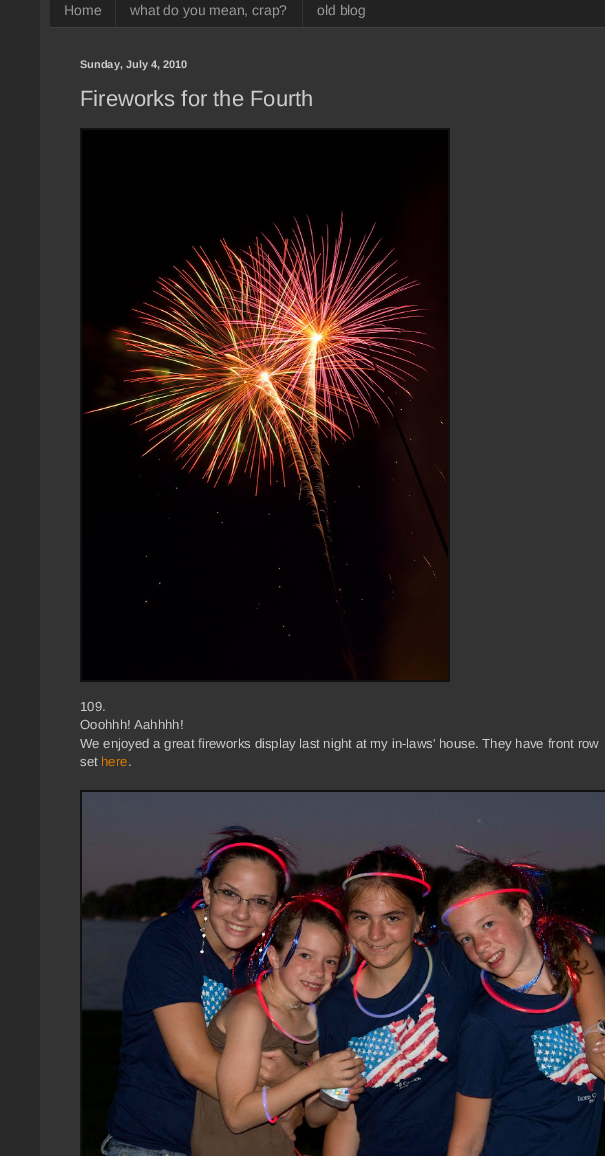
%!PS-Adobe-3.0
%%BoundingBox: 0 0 605 1156
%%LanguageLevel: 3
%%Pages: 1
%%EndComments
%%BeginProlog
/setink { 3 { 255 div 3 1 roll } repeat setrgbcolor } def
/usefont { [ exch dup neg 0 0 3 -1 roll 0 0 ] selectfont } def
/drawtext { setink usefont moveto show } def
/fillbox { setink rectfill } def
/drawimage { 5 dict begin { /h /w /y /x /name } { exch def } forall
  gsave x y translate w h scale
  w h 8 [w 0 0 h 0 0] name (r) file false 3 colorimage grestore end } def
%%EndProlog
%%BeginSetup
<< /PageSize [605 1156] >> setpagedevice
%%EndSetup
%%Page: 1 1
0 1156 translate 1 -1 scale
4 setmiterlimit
0 0 605 1156 41 41 41 fillbox
40 0 565 1156 51 51 51 fillbox
50 0 555 27 34 34 34 fillbox
50 27 555 1 64 64 64 fillbox
(Home) 64 15 /LiberationSans-Regular 14 153 153 153 drawtext
115 0 1 27 51 51 51 fillbox
(what do you mean, crap?) 130 15 /LiberationSans-Regular 14 153 153 153 drawtext
302 0 1 27 51 51 51 fillbox
(old blog) 317 15 /LiberationSans-Regular 14 153 153 153 drawtext
(Sunday, July 4, 2010) 80 68 /LiberationSans-Bold 11 204 204 204 drawtext
(Fireworks for the Fourth) 80 106 /LiberationSans-Regular 22 204 204 204 drawtext
80 128 370 554 17 17 17 fillbox
(assets/img1.rgb) 82 130 366 550 drawimage
(109.) 80 711 /LiberationSans-Regular 13.2 204 204 204 drawtext
(Ooohhh! Aahhhh!) 80 729 /LiberationSans-Regular 13.2 204 204 204 drawtext
(We enjoyed a great fireworks display last night at my in-laws' house. They have front row) 80 748 /LiberationSans-Regular 13.2 204 204 204 drawtext
(set) 80 766 /LiberationSans-Regular 13.2 204 204 204 drawtext
(here) 101 766 /LiberationSans-Regular 13.2 221 119 0 drawtext
(.) 128 766 /LiberationSans-Regular 13.2 204 204 204 drawtext
80 790 525 366 17 17 17 fillbox
(assets/img2.rgb) 82 792 523 364 drawimage
showpage
%%EOF
